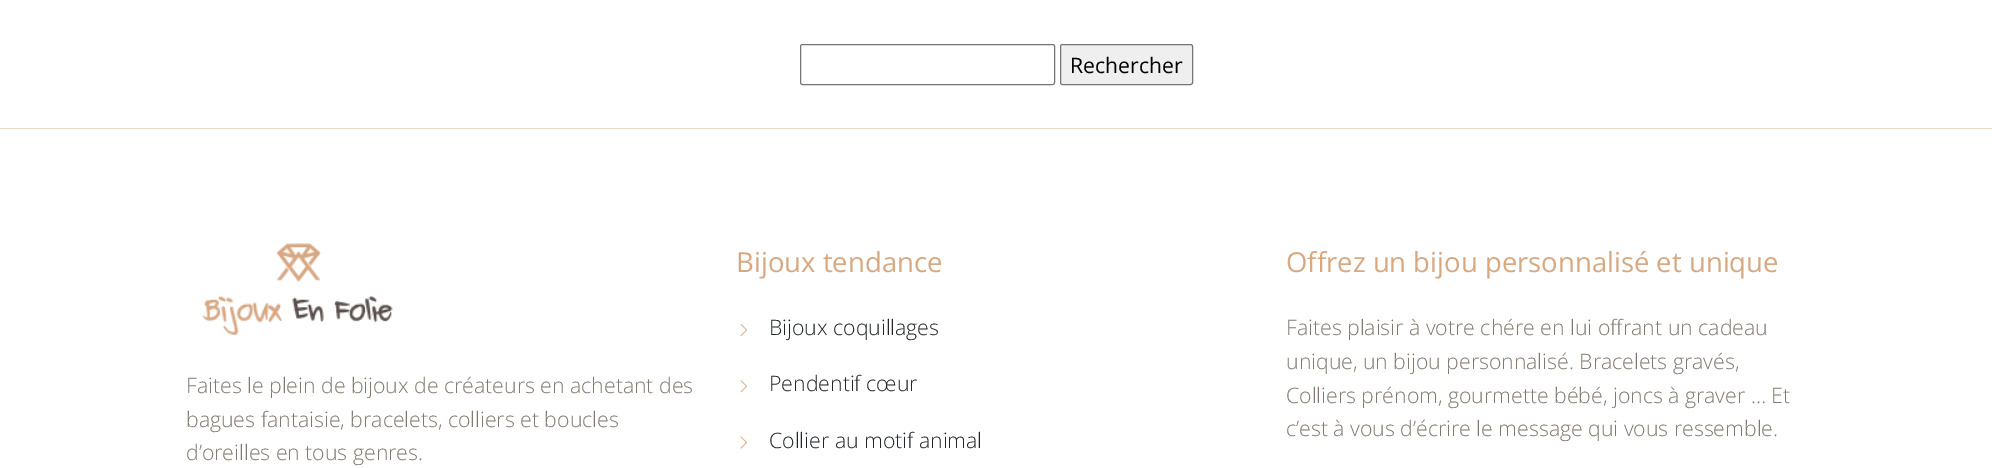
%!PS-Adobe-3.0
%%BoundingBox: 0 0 1992 468
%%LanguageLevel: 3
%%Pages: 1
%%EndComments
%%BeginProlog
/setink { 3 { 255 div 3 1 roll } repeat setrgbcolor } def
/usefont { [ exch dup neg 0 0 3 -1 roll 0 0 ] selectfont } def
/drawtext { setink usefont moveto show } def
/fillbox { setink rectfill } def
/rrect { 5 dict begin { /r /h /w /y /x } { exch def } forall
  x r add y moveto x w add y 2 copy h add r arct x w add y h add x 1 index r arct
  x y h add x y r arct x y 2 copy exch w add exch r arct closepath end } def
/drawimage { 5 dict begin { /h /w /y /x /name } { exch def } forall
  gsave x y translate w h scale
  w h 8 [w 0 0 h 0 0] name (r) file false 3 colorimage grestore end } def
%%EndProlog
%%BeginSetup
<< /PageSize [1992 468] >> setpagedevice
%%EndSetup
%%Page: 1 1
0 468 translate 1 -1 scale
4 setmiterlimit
0 0 1992 468 255 255 255 fillbox
118 118 118 setink
800.5 44.5 254 40 2 rrect stroke
239 239 239 setink
1060.5 44.5 132 40 2 rrect gsave fill grestore
118 118 118 setink
stroke
(Rechercher) 1070 73 /OpenSans-Regular 21.25 0 0 0 drawtext
0 128 1992 1 233 218 202 fillbox
(assets/img1.rgb) 202 243 191 92 drawimage
(Faites le plein de bijoux de créateurs en achetant des) 186 393 /OpenSans-Light 21.25 130 120 111 drawtext
(bagues fantaisie, bracelets, colliers et boucles) 186 427 /OpenSans-Light 21.25 130 120 111 drawtext
(d’oreilles en tous genres.) 186 460 /OpenSans-Light 21.25 130 120 111 drawtext
(Bijoux tendance) 736 272 /OpenSans-Regular 27.5 216 168 129 drawtext
(assets/img2.rgb) 740 324 7 12 drawimage
(Bijoux coquillages) 769 335 /OpenSans-Light 21.25 33 37 41 drawtext
(assets/img3.rgb) 740 380 7 13 drawimage
(Pendentif cœur) 769 391 /OpenSans-Light 21.25 33 37 41 drawtext
(assets/img4.rgb) 740 436 7 13 drawimage
(Collier au motif animal) 769 448 /OpenSans-Light 21.25 33 37 41 drawtext
(Offrez un bijou personnalisé et unique) 1286 272 /OpenSans-Regular 27.5 216 168 129 drawtext
(Faites plaisir à votre chére en lui offrant un cadeau) 1286 335 /OpenSans-Light 21.25 130 120 111 drawtext
(unique, un bijou personnalisé. Bracelets gravés,) 1286 369 /OpenSans-Light 21.25 130 120 111 drawtext
(Colliers prénom, gourmette bébé, joncs à graver … Et) 1286 403 /OpenSans-Light 21.25 130 120 111 drawtext
(c’est à vous d’écrire le message qui vous ressemble.) 1286 436 /OpenSans-Light 21.25 130 120 111 drawtext
showpage
%%EOF
